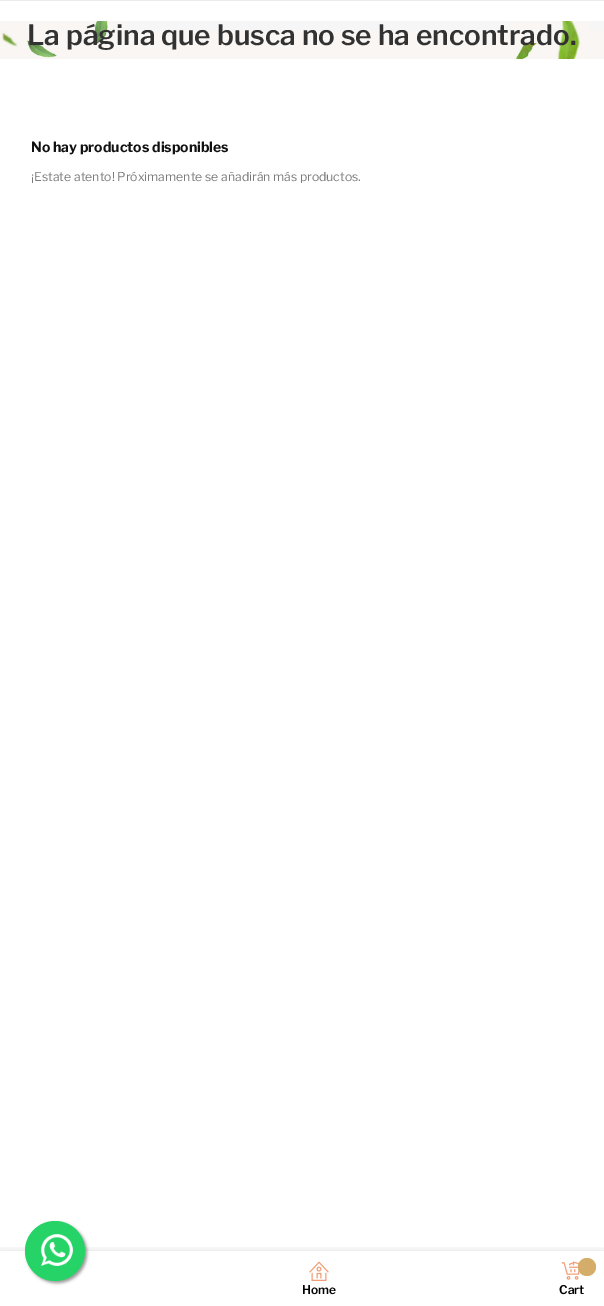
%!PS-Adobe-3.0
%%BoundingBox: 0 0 604 1306
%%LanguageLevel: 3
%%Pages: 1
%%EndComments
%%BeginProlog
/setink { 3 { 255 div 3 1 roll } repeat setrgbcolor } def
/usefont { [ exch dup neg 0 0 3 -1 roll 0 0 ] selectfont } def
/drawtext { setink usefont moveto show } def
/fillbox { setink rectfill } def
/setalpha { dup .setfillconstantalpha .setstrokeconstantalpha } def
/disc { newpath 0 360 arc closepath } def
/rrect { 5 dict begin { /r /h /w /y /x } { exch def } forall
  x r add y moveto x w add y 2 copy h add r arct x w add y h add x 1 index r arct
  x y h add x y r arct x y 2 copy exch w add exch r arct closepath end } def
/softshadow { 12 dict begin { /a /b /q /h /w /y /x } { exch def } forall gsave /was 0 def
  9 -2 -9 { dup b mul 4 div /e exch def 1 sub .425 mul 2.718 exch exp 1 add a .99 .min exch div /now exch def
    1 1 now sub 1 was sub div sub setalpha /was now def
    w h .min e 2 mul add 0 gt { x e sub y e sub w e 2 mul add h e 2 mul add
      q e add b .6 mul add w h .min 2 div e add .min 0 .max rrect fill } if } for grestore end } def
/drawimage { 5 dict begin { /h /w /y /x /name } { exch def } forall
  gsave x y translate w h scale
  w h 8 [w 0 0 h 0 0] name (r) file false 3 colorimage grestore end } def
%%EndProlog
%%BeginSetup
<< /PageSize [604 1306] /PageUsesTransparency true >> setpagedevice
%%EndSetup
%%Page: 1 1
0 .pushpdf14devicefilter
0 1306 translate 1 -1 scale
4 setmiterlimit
0 0 604 1306 255 255 255 fillbox
0 0 604 1 235 235 235 fillbox
(assets/img1.rgb) 0 21 604 38 drawimage
(La página que busca no se ha encontrado.) 27 45 /LibreFranklin-SemiBold 28 50 50 50 drawtext
(No hay productos disponibles) 31 152 /LibreFranklin-Bold 14 18 17 17 drawtext
(¡Estate atento! Próximamente se añadirán más productos.) 31 181 /LibreFranklin-Regular 12.25 122 122 122 drawtext
153 153 153 setink
27 1223 60 60 30 1.5 1 softshadow
gsave
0 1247 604 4 rectclip
0 0 0 setink
0 1251 604 55 0 4.5 0.12 softshadow
grestore
37 211 102 setink
55 1251 30 disc fill
(assets/img2.rgb) 41 1234 32 32 drawimage
(assets/img3.rgb) 309 1261 20 20 drawimage
(Home) 302 1294 /LibreFranklin-SemiBold 12 0 0 0 drawtext
(assets/img4.rgb) 561 1261 19 19 drawimage
211 173 105 setink
587 1267 9 disc fill
(Cart) 559 1294 /LibreFranklin-SemiBold 12 0 0 0 drawtext
.poppdf14devicefilter showpage
%%EOF
